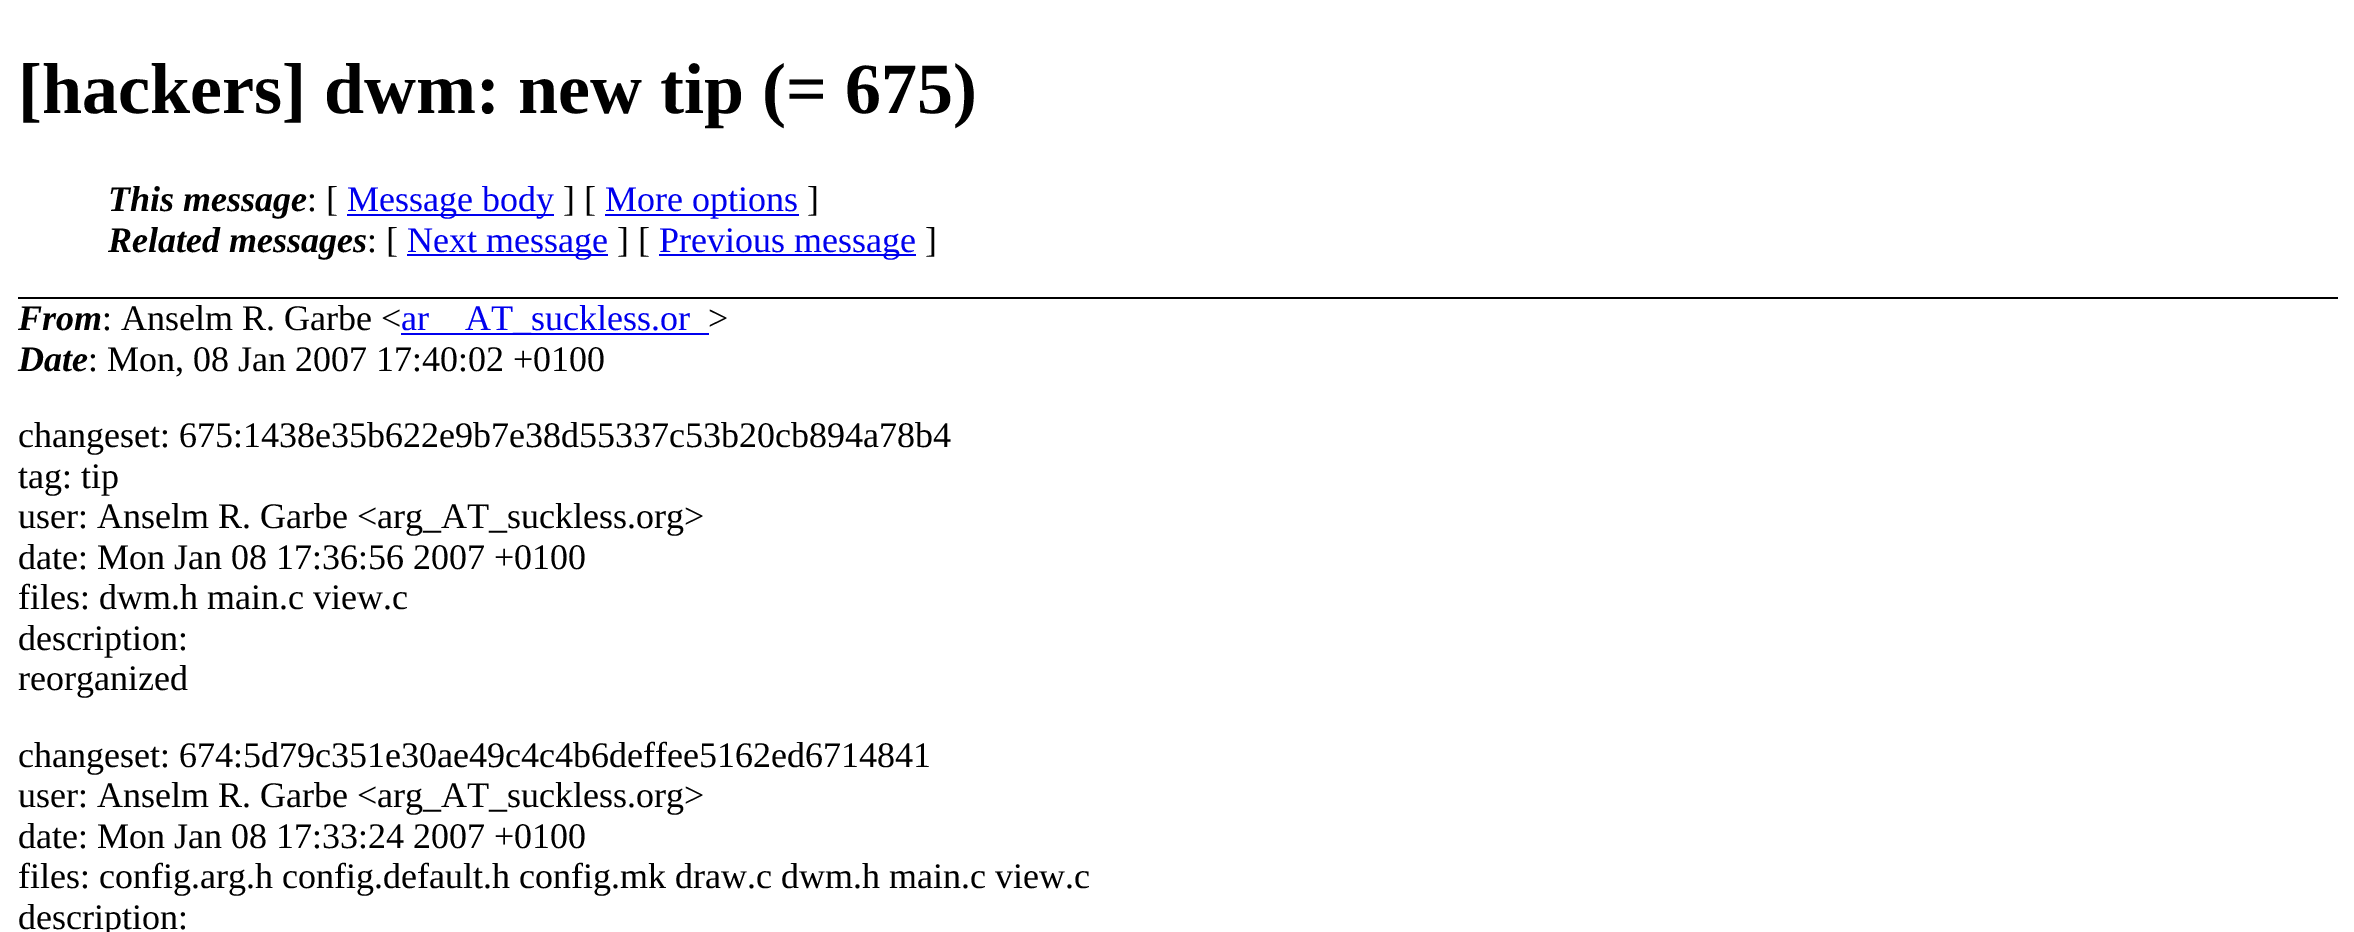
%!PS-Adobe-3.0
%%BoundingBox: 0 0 2354 932
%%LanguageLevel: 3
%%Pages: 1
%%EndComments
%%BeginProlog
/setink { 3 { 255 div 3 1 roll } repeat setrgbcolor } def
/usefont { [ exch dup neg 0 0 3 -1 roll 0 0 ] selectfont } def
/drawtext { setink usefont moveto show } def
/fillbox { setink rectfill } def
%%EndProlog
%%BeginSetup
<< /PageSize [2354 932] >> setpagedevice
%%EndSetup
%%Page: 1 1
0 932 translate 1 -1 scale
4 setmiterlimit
0 0 2354 932 255 255 255 fillbox
18 297 2320 2 0 0 0 fillbox
([hackers] dwm: new tip \(= 675\)) 18 113 /LiberationSerif-Bold 72 0 0 0 drawtext
(This message) 108 211 /LiberationSerif-BoldItalic 36 0 0 0 drawtext
(: [) 307 211 /LiberationSerif-Regular 36 0 0 0 drawtext
347 214 207 2 0 0 238 fillbox
(Message body) 347 211 /LiberationSerif-Regular 36 0 0 238 drawtext
(] [) 563 211 /LiberationSerif-Regular 36 0 0 0 drawtext
605 214 194 2 0 0 238 fillbox
(More options) 605 211 /LiberationSerif-Regular 36 0 0 238 drawtext
(]) 807 211 /LiberationSerif-Regular 36 0 0 0 drawtext
(Related messages) 108 252 /LiberationSerif-BoldItalic 36 0 0 0 drawtext
(: [) 367 252 /LiberationSerif-Regular 36 0 0 0 drawtext
407 254 201 2 0 0 238 fillbox
(Next message) 407 252 /LiberationSerif-Regular 36 0 0 238 drawtext
(] [) 617 252 /LiberationSerif-Regular 36 0 0 0 drawtext
659 254 257 2 0 0 238 fillbox
(Previous message) 659 252 /LiberationSerif-Regular 36 0 0 238 drawtext
(]) 925 252 /LiberationSerif-Regular 36 0 0 0 drawtext
(From) 18 330 /LiberationSerif-BoldItalic 36 0 0 0 drawtext
(: Anselm R. Garbe <) 102 330 /LiberationSerif-Regular 36 0 0 0 drawtext
(ar) 401 330 /LiberationSerif-Regular 36 0 0 238 drawtext
401 333 308 2 0 0 238 fillbox
(AT_suckless.or) 465 330 /LiberationSerif-Regular 36 0 0 238 drawtext
(>) 708 330 /LiberationSerif-Regular 36 0 0 0 drawtext
(Date) 18 371 /LiberationSerif-BoldItalic 36 0 0 0 drawtext
(: Mon, 08 Jan 2007 17:40:02 +0100) 88 371 /LiberationSerif-Regular 36 0 0 0 drawtext
(changeset: 675:1438e35b622e9b7e38d55337c53b20cb894a78b4) 18 447 /LiberationSerif-Regular 36 0 0 0 drawtext
(tag: tip) 18 488 /LiberationSerif-Regular 36 0 0 0 drawtext
(user: Anselm R. Garbe <arg_AT_suckless.org>) 18 528 /LiberationSerif-Regular 36 0 0 0 drawtext
(date: Mon Jan 08 17:36:56 2007 +0100) 18 569 /LiberationSerif-Regular 36 0 0 0 drawtext
(files: dwm.h main.c view.c) 18 609 /LiberationSerif-Regular 36 0 0 0 drawtext
(description:) 18 650 /LiberationSerif-Regular 36 0 0 0 drawtext
(reorganized) 18 690 /LiberationSerif-Regular 36 0 0 0 drawtext
(changeset: 674:5d79c351e30ae49c4c4b6deffee5162ed6714841) 18 767 /LiberationSerif-Regular 36 0 0 0 drawtext
(user: Anselm R. Garbe <arg_AT_suckless.org>) 18 807 /LiberationSerif-Regular 36 0 0 0 drawtext
(date: Mon Jan 08 17:33:24 2007 +0100) 18 848 /LiberationSerif-Regular 36 0 0 0 drawtext
(files: config.arg.h config.default.h config.mk draw.c dwm.h main.c view.c) 18 888 /LiberationSerif-Regular 36 0 0 0 drawtext
(description:) 18 929 /LiberationSerif-Regular 36 0 0 0 drawtext
showpage
%%EOF
